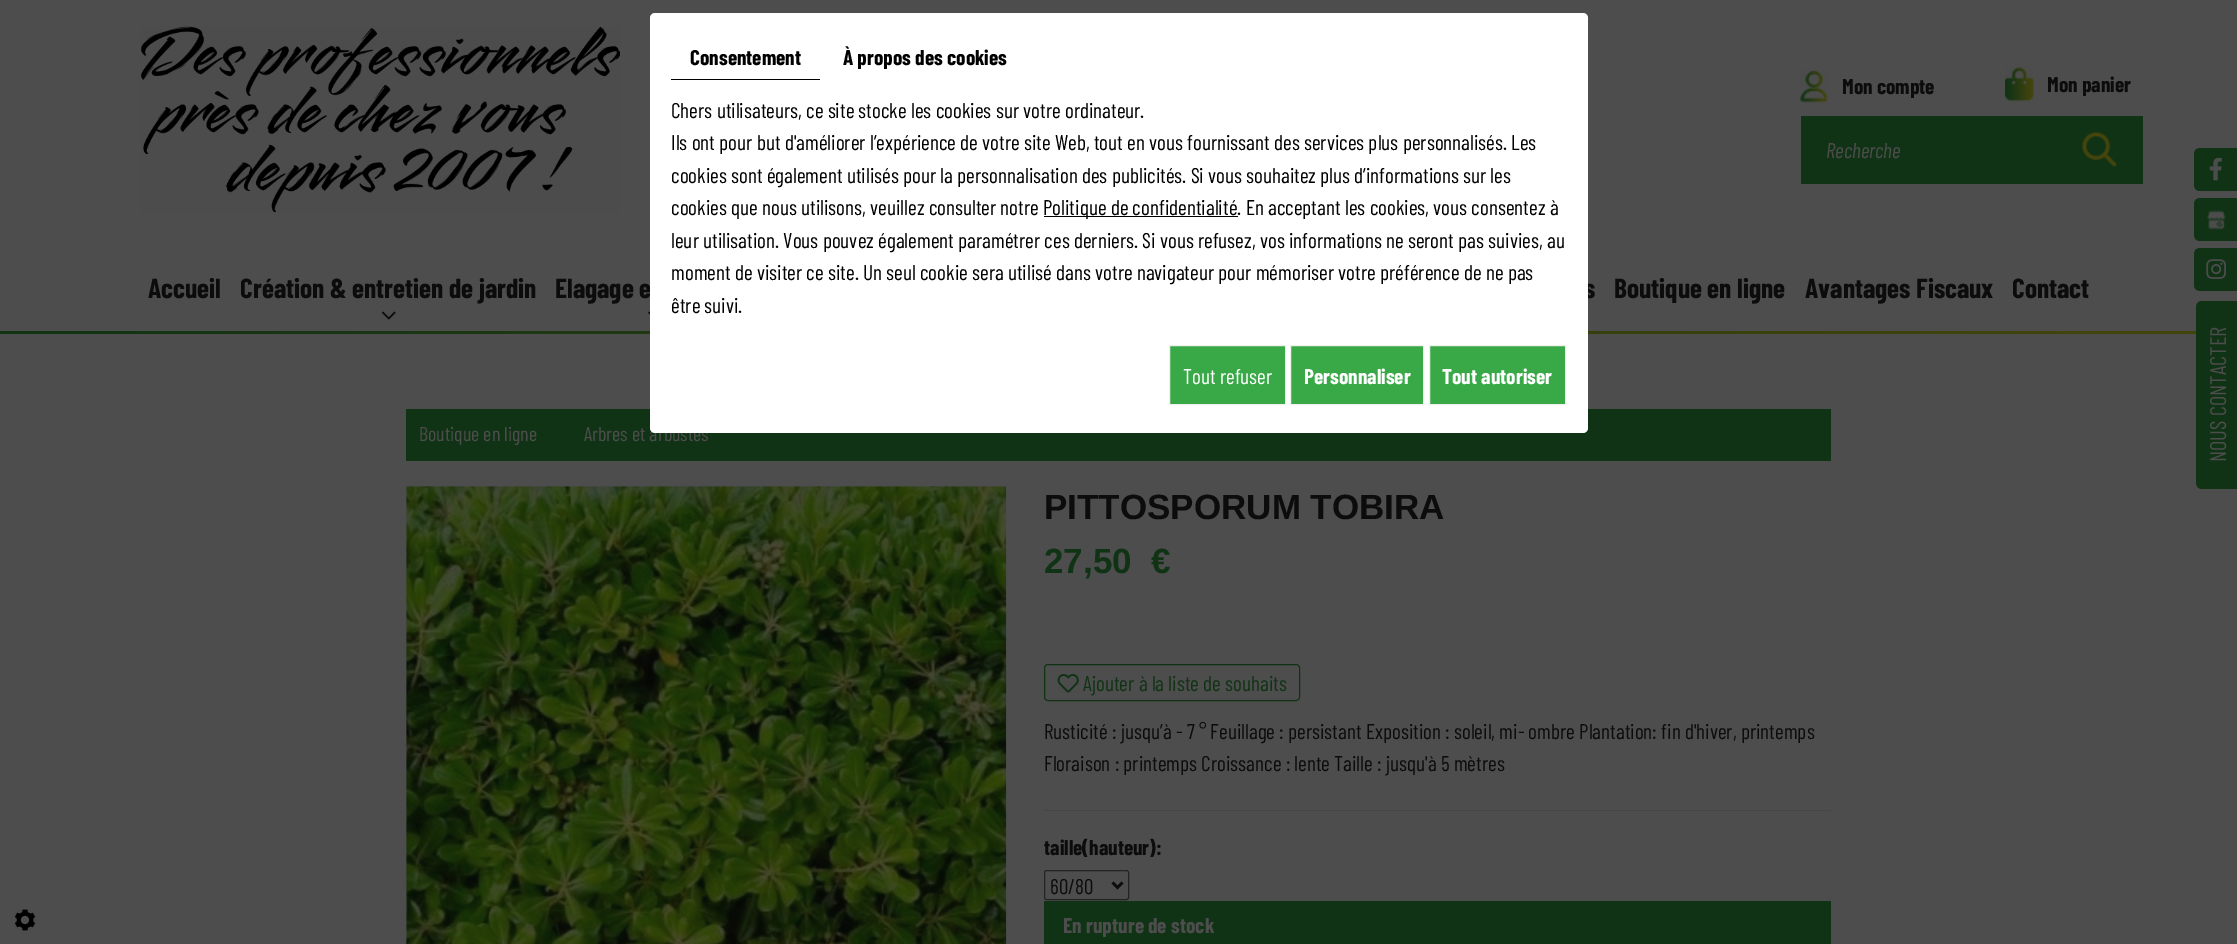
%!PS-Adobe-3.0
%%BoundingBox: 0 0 2237 944
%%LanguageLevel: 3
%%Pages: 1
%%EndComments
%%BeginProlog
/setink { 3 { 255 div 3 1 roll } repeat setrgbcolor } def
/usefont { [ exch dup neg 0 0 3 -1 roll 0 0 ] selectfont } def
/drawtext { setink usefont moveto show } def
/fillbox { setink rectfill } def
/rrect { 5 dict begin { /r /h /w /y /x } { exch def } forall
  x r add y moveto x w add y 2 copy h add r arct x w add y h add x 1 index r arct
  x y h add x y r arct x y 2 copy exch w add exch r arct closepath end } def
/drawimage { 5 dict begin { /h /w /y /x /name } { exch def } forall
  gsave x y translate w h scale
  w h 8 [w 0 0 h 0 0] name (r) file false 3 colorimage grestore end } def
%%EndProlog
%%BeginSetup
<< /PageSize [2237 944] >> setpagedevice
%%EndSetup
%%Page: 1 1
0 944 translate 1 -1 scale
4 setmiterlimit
0 0 2237 944 77 77 77 fillbox
(Elagage e) 555 298 /BarlowCondensed-Bold 27.5 12 12 12 drawtext
(s) 1584 298 /BarlowCondensed-Bold 27.5 12 12 12 drawtext
gsave 0 331 moveto 2196 331 lineto 2196 334 lineto 0 334 lineto closepath clip newpath
<< /ShadingType 2 /ColorSpace /DeviceRGB /Coords [0 333 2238 332] /Extend [true true] /Function << /FunctionType 2 /Domain [0 1] /C0 [0.067 0.2 0.082] /C1 [0.271 0.271 0.047] /N 1 >> >> shfill grestore
406 409 1425 52 17 51 21 fillbox
(Arbres et arbustes) 584 441 /BarlowCondensed-Regular 20 77 77 77 drawtext
255 255 255 setink
650 13 938 420 5 rrect fill
671 79 149 1 0 0 0 fillbox
(Consentement) 690 65 /BarlowCondensed-Bold 21.25 0 0 0 drawtext
(À propos des cookies) 843 65 /BarlowCondensed-Bold 21.25 0 0 0 drawtext
(Chers utilisateurs, ce site stocke les cookies sur votre ordinateur.) 671 118 /BarlowCondensed-Regular 21.25 0 0 0 drawtext
(Ils ont pour but d'améliorer l’expérience de votre site Web, tout en vous fournissant des services plus personnalisés. Les) 671 150 /BarlowCondensed-Regular 21.25 0 0 0 drawtext
(cookies sont également utilisés pour la personnalisation des publicités. Si vous souhaitez plus d’informations sur les) 671 183 /BarlowCondensed-Regular 21.25 0 0 0 drawtext
(cookies que nous utilisons, veuillez consulter notre) 671 215 /BarlowCondensed-Regular 21.25 0 0 0 drawtext
1044 216 194 1 0 0 0 fillbox
(Politique de confidentialité. En acceptant les cookies, vous consentez à) 1043 215 /BarlowCondensed-Regular 21.25 0 0 0 drawtext
(leur utilisation. Vous pouvez également paramétrer ces derniers. Si vous refusez, vos informations ne seront pas suivies, au) 671 248 /BarlowCondensed-Regular 21.25 0 0 0 drawtext
(moment de visiter ce site. Un seul cookie sera utilisé dans votre navigateur pour mémoriser votre préférence de ne pas) 671 280 /BarlowCondensed-Regular 21.25 0 0 0 drawtext
(être suivi.) 671 313 /BarlowCondensed-Regular 21.25 0 0 0 drawtext
56 169 70 setink
1169.5 345.5 moveto 1285.5 345.5 lineto 1285.5 404.5 lineto 1169.5 404.5 lineto closepath gsave fill grestore
240 240 240 setink
stroke
(Tout refuser) 1183 384 /BarlowCondensed-Regular 21.25 255 255 255 drawtext
56 169 70 setink
1290.5 345.5 moveto 1423.5 345.5 lineto 1423.5 404.5 lineto 1290.5 404.5 lineto closepath gsave fill grestore
240 240 240 setink
stroke
(Personnaliser) 1304 384 /BarlowCondensed-Bold 21.25 255 255 255 drawtext
56 169 70 setink
1429.5 345.5 moveto 1565.5 345.5 lineto 1565.5 404.5 lineto 1429.5 404.5 lineto closepath gsave fill grestore
240 240 240 setink
stroke
(Tout autoriser) 1442 384 /BarlowCondensed-Bold 21.25 255 255 255 drawtext
(assets/img1.rgb) 14 909 22 22 drawimage
(assets/img2.rgb) 141 26 479 187 drawimage
(assets/img3.rgb) 1800 70 28 33 drawimage
(Mon compte) 1842 94 /BarlowCondensed-Bold 21.25 12 12 12 drawtext
(assets/img4.rgb) 2005 67 29 35 drawimage
(Mon panier) 2047 92 /BarlowCondensed-Bold 21.25 12 12 12 drawtext
1801 116 342 68 17 51 21 fillbox
(Recherche) 1826 158 /BarlowCondensed-Italic 21.25 77 77 77 drawtext
(assets/img5.rgb) 2082 132 35 35 drawimage
(Accueil) 148 298 /BarlowCondensed-Bold 27.5 12 12 12 drawtext
(Création & entretien de jardin) 240 298 /BarlowCondensed-Bold 27.5 12 12 12 drawtext
(assets/img6.rgb) 381 311 15 9 drawimage
(assets/img7.rgb) 648 311 2 4 drawimage
(Boutique en ligne) 1614 298 /BarlowCondensed-Bold 27.5 12 12 12 drawtext
(Avantages Fiscaux) 1805 298 /BarlowCondensed-Bold 27.5 12 12 12 drawtext
(Contact) 2012 298 /BarlowCondensed-Bold 27.5 12 12 12 drawtext
17 51 21 setink
2200 148 moveto 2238 148 lineto 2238 191 lineto 2200 191 lineto 2196.5 191 2194 188.5 2194 185 curveto 2194 154 lineto 2194 150.5 2196.5 148 2200 148 curveto closepath fill
(assets/img8.rgb) 2209 157 13 24 drawimage
2200 198 moveto 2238 198 lineto 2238 241 lineto 2200 241 lineto 2196.5 241 2194 238.5 2194 235 curveto 2194 204 lineto 2194 200.5 2196.5 198 2200 198 curveto closepath fill
(assets/img9.rgb) 2206 210 20 20 drawimage
2200 248 moveto 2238 248 lineto 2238 291 lineto 2200 291 lineto 2196.5 291 2194 288.5 2194 285 curveto 2194 254 lineto 2194 250.5 2196.5 248 2200 248 curveto closepath fill
(assets/img10.rgb) 2206 259 20 20 drawimage
2196 482 moveto 2196 307 lineto 2196 304 2198 301 2202 301 curveto 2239 301 lineto 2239 489 lineto 2202 489 lineto 2198 489 2196 486 2196 482 curveto closepath fill
/BarlowCondensed-Regular 22.5 usefont
77 77 77 setink
gsave 2226 462 translate -90 rotate 0 0 moveto (NOUS CONTACTER) show grestore
(Boutique en ligne) 419 441 /BarlowCondensed-Regular 20 77 77 77 drawtext
406 486 600 458 73 73 73 fillbox
(assets/img11.rgb) 406 486 601 458 drawimage
(PITTOSPORUM TOBIRA) 1044 519 /LiberationSans-Bold 35 12 12 12 drawtext
(27,50  €) 1044 573 /LiberationSans-Bold 35 17 51 21 drawtext
1044.5 664.5 255 36 3.5 rrect stroke
(assets/img12.rgb) 1057 674 22 19 drawimage
(Ajouter à la liste de souhaits) 1083 691 /BarlowCondensed-Regular 21.25 17 51 21 drawtext
(Rusticité : jusqu’à - 7 ° Feuillage : persistant Exposition : soleil, mi- ombre Plantation: fin d'hiver, printemps) 1044 739 /BarlowCondensed-Regular 21.25 12 12 12 drawtext
(Floraison : printemps Croissance : lente Taille : jusqu'à 5 mètres) 1044 771 /BarlowCondensed-Regular 21.25 12 12 12 drawtext
1044 810 787 1 69 69 69 fillbox
(taille\(hauteur\):) 1044 855 /BarlowCondensed-Bold 21.25 12 12 12 drawtext
35 35 35 setink
1044.5 870.5 84 29 2 rrect stroke
12 12 12 setink
2.5 setlinewidth
1112.5 882.5 moveto 1117.5 887.5 lineto 1122.5 882.5 lineto stroke
(60/80) 1050 894 /BarlowCondensed-Regular 21.25 12 12 12 drawtext
1044 901 787 43 17 51 21 fillbox
(En rupture de stock) 1063 933 /BarlowCondensed-Bold 21.25 77 77 77 drawtext
showpage
%%EOF
